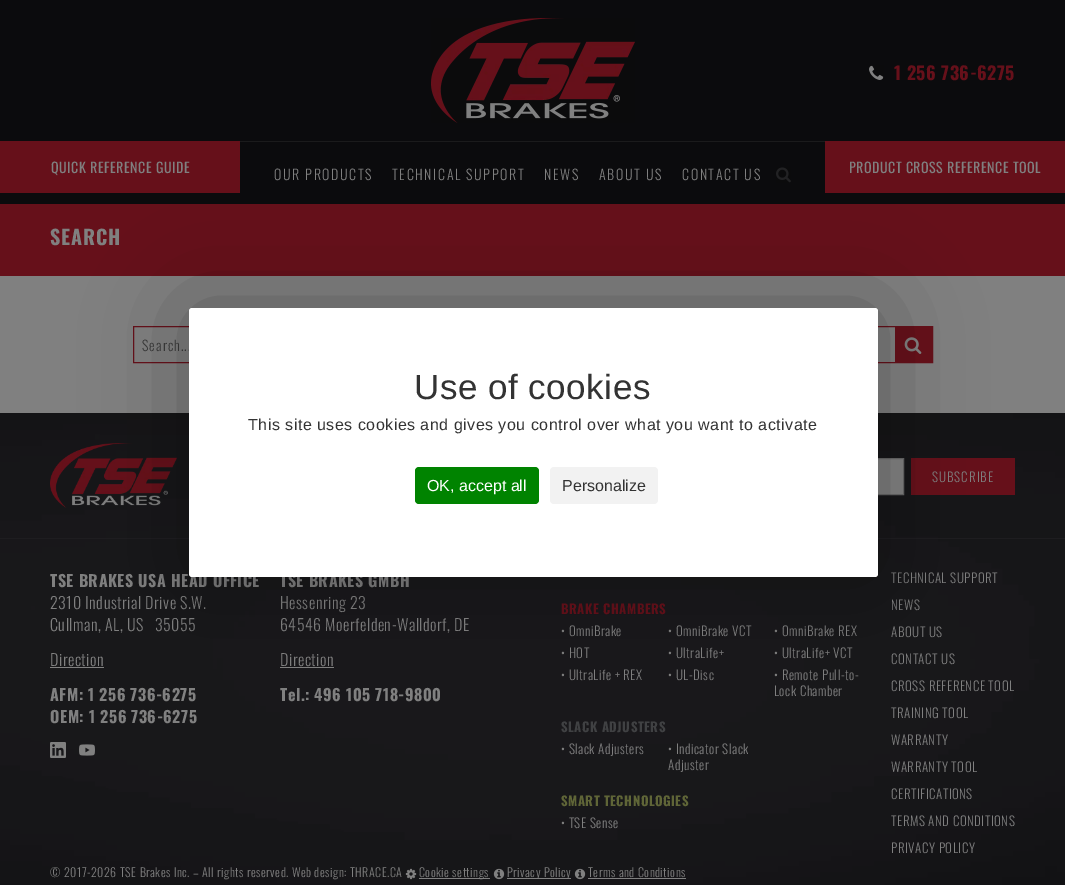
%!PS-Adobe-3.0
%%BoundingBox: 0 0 1065 885
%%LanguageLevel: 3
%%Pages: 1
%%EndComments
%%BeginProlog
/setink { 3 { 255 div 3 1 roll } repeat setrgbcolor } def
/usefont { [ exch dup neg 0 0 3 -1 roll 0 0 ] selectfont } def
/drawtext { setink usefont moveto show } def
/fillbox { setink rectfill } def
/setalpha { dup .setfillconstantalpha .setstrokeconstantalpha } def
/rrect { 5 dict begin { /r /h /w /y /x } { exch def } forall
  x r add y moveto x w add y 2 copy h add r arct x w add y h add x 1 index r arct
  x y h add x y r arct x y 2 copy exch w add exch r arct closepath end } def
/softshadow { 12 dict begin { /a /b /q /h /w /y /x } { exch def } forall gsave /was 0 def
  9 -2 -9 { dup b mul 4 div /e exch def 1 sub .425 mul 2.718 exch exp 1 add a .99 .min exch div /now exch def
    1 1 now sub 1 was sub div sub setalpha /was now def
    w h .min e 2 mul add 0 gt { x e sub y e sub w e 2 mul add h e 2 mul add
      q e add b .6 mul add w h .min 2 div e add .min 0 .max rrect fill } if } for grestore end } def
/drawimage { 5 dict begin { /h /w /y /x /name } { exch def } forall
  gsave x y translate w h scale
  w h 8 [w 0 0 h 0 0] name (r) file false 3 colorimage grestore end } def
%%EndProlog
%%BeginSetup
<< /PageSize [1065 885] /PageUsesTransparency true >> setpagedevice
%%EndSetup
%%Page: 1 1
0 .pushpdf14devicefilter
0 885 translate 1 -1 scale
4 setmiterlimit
0 0 1065 885 255 255 255 fillbox
0 0 1065 204 11 11 13 fillbox
(assets/img1.rgb) 431 18 204 105 drawimage
(assets/img2.rgb) 869 65 15 15 drawimage
/Oswald-Bold 18 usefont
102 16 26 setink
894 80 moveto 0.5 0 (1 256 736-6275) ashow
240 141 585 1 27 27 28 fillbox
0 141 240 52 102 16 26 fillbox
/Oswald-Regular 14 usefont
128 128 128 setink
51 173 moveto 0.5 0 (QUICK REFERENCE GUIDE) ashow
/Oswald-Light 14 usefont
274 180 moveto 1.6 0 (OUR PRODUCTS) ashow
392 180 moveto 1.6 0 (TECHNICAL SUPPORT) ashow
544 180 moveto 1.6 0 (NEWS) ashow
599 180 moveto 1.6 0 (ABOUT US) ashow
682 180 moveto 1.6 0 (CONTACT US) ashow
(assets/img3.rgb) 776 167 15 16 drawimage
825 141 240 52 102 16 26 fillbox
/Oswald-Regular 14 usefont
128 128 128 setink
849 173 moveto 0.5 0 (PRODUCT CROSS REFERENCE TOOL) ashow
0 276 1065 137 128 128 128 fillbox
0 204 1065 72 102 16 26 fillbox
/Oswald-Bold 20 usefont
128 128 128 setink
50 245 moveto 1 0 (SEARCH) ashow
102 16 26 setink
133.5 326.5 799 36 rectstroke
/Oswald-Light 14 usefont
59 59 59 setink
142 351 moveto 1 0 (Search...) ashow
895 327 37 35 102 16 26 fillbox
(assets/img4.rgb) 904 337 18 17 drawimage
(assets/img5.rgb) 0 413 1065 472 drawimage
(assets/img6.rgb) 50 443 127 65 drawimage
878 459 25 35 128 128 128 fillbox
102 102 102 setink
754.5 458.5 149 36 rectstroke
911 458 104 37 102 16 26 fillbox
/Oswald-Light 13 usefont
128 128 128 setink
932 482 moveto 1 0 (SUBSCRIBE) ashow
0 538 1065 1 30 29 32 fillbox
/Oswald-Bold 16 usefont
128 128 128 setink
50 587 moveto 0.5 0 (TSE BRAKES USA HEAD OFFICE) ashow
/Oswald-Light 16 usefont
50 609 moveto 0.5 0 (2310 Industrial Drive S.W.) ashow
50 631 moveto 0.5 0 (Cullman, AL, US) ashow
155 631 moveto 0.5 0 (35055) ashow
50 666 moveto 0.5 0 (Direction) ashow
50 667 54 1 128 128 128 fillbox
/Oswald-Bold 16 usefont
50 701 moveto 0.5 0 (AFM: 1 256 736-6275) ashow
50 723 moveto 0.5 0 (OEM: 1 256 736-6275) ashow
(assets/img7.rgb) 50 742 16 16 drawimage
(assets/img8.rgb) 79 744 16 12 drawimage
280 587 moveto 0.5 0 (TSE BRAKES GMBH) ashow
/Oswald-Light 16 usefont
280 609 moveto 0.5 0 (Hessenring 23) ashow
280 631 moveto 0.5 0 (64546 Moerfelden-Walldorf, DE) ashow
280 666 moveto 0.5 0 (Direction) ashow
280 667 54 1 128 128 128 fillbox
/Oswald-Bold 16 usefont
280 701 moveto 0.5 0 (Tel.: 496 105 718-9800) ashow
/Oswald-Bold 13 usefont
102 16 26 setink
561 614 moveto 0.5 0 (BRAKE CHAMBERS) ashow
/Oswald-Light 13 usefont
128 128 128 setink
561 636 moveto 0.5 0 (• OmniBrake) ashow
668 636 moveto 0.5 0 (• OmniBrake VCT) ashow
774 636 moveto 0.5 0 (• OmniBrake REX) ashow
561 658 moveto 0.5 0 (• HOT) ashow
668 658 moveto 0.5 0 (• UltraLife+) ashow
774 658 moveto 0.5 0 (• UltraLife+ VCT) ashow
561 680 moveto 0.5 0 (• UltraLife + REX) ashow
668 680 moveto 0.5 0 (• UL-Disc) ashow
774 680 moveto 0.5 0 (• Remote Pull-to-) ashow
774 696 moveto 0.5 0 (Lock Chamber) ashow
/Oswald-Bold 13 usefont
64 65 67 setink
561 732 moveto 0.5 0 (SLACK ADJUSTERS) ashow
/Oswald-Light 13 usefont
128 128 128 setink
561 754 moveto 0.5 0 (• Slack Adjusters) ashow
668 754 moveto 0.5 0 (• Indicator Slack) ashow
668 770 moveto 0.5 0 (Adjuster) ashow
/Oswald-Bold 13 usefont
95 101 55 setink
561 806 moveto 0.5 0 (SMART TECHNOLOGIES) ashow
/Oswald-Light 13 usefont
128 128 128 setink
561 828 moveto 0.5 0 (• TSE Sense) ashow
891 583 moveto 0.5 0 (TECHNICAL SUPPORT) ashow
891 610 moveto 0.5 0 (NEWS) ashow
891 637 moveto 0.5 0 (ABOUT US) ashow
891 664 moveto 0.5 0 (CONTACT US) ashow
891 691 moveto 0.5 0 (CROSS REFERENCE TOOL) ashow
891 718 moveto 0.5 0 (TRAINING TOOL) ashow
891 745 moveto 0.5 0 (WARRANTY) ashow
891 772 moveto 0.5 0 (WARRANTY TOOL) ashow
891 799 moveto 0.5 0 (CERTIFICATIONS) ashow
891 826 moveto 0.5 0 (TERMS AND CONDITIONS) ashow
891 853 moveto 0.5 0 (PRIVACY POLICY) ashow
/Oswald-Light 12 usefont
50 877 moveto 0.5 0 (© 2017-2026 TSE Brakes Inc. – All rights reserved. Web design: THRACE.CA) ashow
(assets/img9.rgb) 405 868 12 12 drawimage
419 878 71 1 128 128 128 fillbox
419 877 moveto 0.5 0 (Cookie settings) ashow
(assets/img10.rgb) 493 868 12 12 drawimage
507 878 64 1 128 128 128 fillbox
507 877 moveto 0.5 0 (Privacy Policy) ashow
(assets/img11.rgb) 574 868 12 12 drawimage
588 877 moveto 0.5 0 (Terms and Conditions) ashow
588 878 98 1 128 128 128 fillbox
0 0 0 setink
189 308 689 269 3 50 0.3 softshadow
255 255 255 setink
189 308 689 269 3 rrect fill
/LiberationSans-Regular 35 usefont
51 51 51 setink
414 399 moveto 0.5 0 (Use of cookies) ashow
/LiberationSans-Regular 16 usefont
248 430 moveto 0.5 0 (This site uses cookies and gives you control over what you want to activate) ashow
0 131 0 setink
415 467 124 37 4 rrect fill
(OK, accept all) 427 491 /LiberationSans-Regular 16 255 255 255 drawtext
242 242 242 setink
550 467 108 37 4 rrect fill
(Personalize) 562 491 /LiberationSans-Regular 16 51 51 51 drawtext
.poppdf14devicefilter showpage
%%EOF
